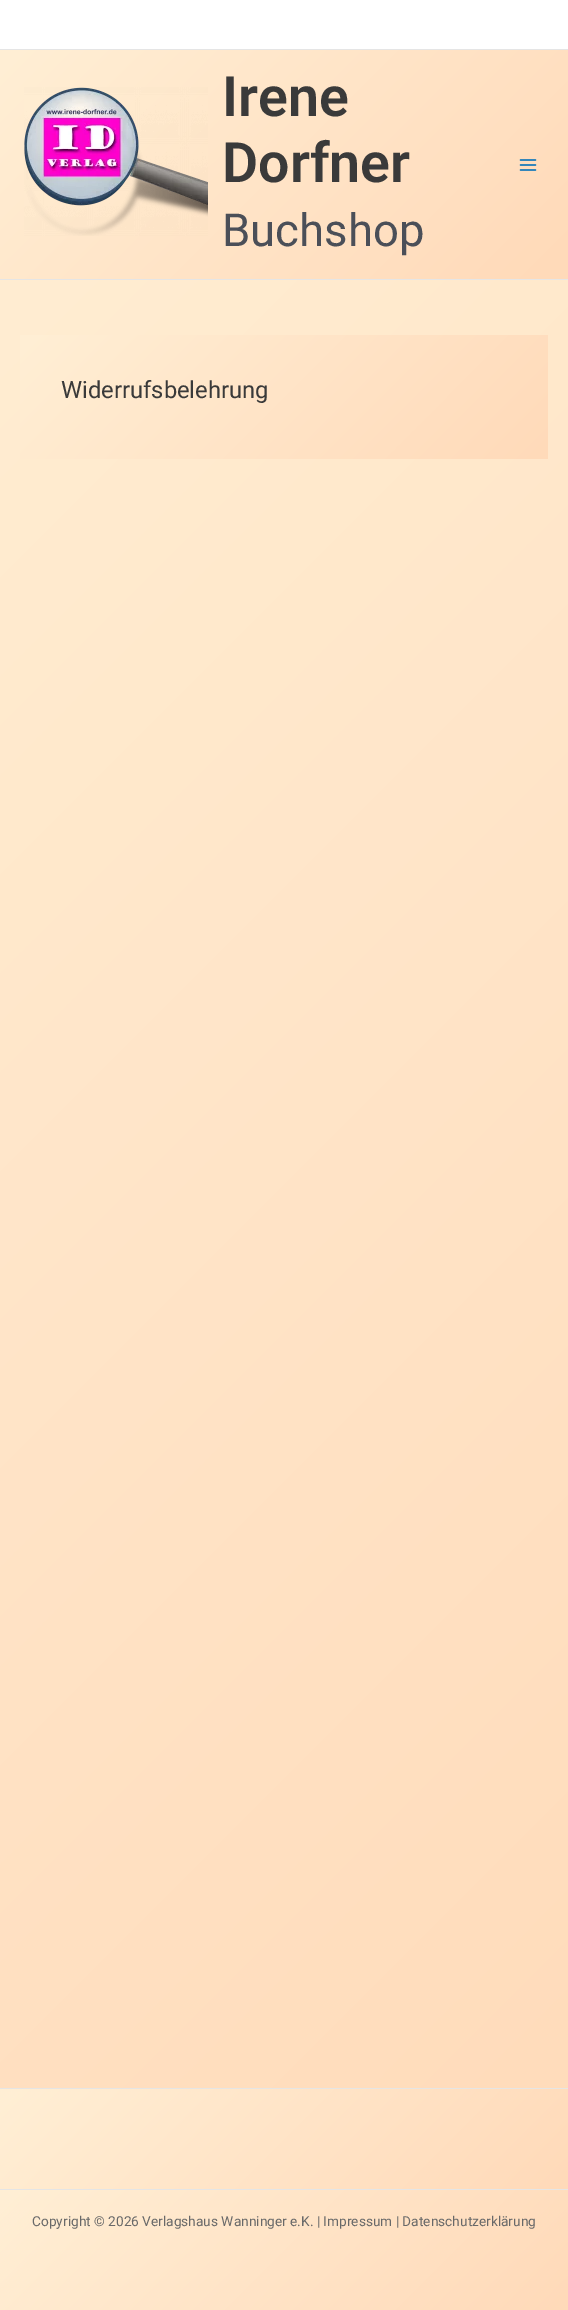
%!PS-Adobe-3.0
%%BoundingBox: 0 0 568 2310
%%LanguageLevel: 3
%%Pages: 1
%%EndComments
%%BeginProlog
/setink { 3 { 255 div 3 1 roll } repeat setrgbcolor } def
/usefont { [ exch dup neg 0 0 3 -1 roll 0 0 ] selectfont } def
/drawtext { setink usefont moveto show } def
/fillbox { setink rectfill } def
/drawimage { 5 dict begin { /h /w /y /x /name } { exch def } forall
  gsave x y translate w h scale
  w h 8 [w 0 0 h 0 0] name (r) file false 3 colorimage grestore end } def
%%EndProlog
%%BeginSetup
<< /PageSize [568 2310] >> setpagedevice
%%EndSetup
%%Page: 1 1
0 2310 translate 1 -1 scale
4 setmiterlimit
0 0 568 2310 255 255 255 fillbox
gsave 0 280 moveto 568 280 lineto 568 2088 lineto 0 2088 lineto closepath clip newpath
<< /ShadingType 2 /ColorSpace /DeviceRGB /Coords [-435 436 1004 1875] /Extend [true true] /Function << /FunctionType 2 /Domain [0 1] /C0 [1 0.937 0.835] /C1 [1 0.855 0.725] /N 1 >> >> shfill grestore
0 49 568 1 229 229 229 fillbox
gsave 0 50 moveto 568 50 lineto 568 279 lineto 0 279 lineto closepath clip newpath
<< /ShadingType 2 /ColorSpace /DeviceRGB /Coords [85 -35 483 364] /Extend [true true] /Function << /FunctionType 3 /Domain [0 1] /Functions [<< /FunctionType 2 /Domain [0 1] /C0 [1 0.937 0.835] /C1 [1 0.855 0.725] /N 1 >> << /FunctionType 2 /Domain [0 1] /C0 [1 0.855 0.725] /C1 [1 0.855 0.725] /N 1 >>] /Bounds [0.99] /Encode [0 1 0 1] >> >> shfill grestore
0 279 568 1 229 229 229 fillbox
(assets/img1.rgb) 24 87 184 149 drawimage
(Irene) 222 116 /Roboto-SemiBold 55.5 58 58 58 drawtext
(Dorfner) 222 182 /Roboto-SemiBold 55.5 58 58 58 drawtext
(Buchshop) 222 246 /Roboto-Regular 45.5 75 79 88 drawtext
(assets/img2.rgb) 519 159 18 12 drawimage
gsave 20 335 moveto 548 335 lineto 548 459 lineto 20 459 lineto closepath clip newpath
<< /ShadingType 2 /ColorSpace /DeviceRGB /Coords [121 234 447 560] /Extend [true true] /Function << /FunctionType 2 /Domain [0 1] /C0 [1 0.937 0.835] /C1 [1 0.855 0.725] /N 1 >> >> shfill grestore
(Widerrufsbelehrung) 61 398 /Roboto-Regular 23.75 58 58 58 drawtext
gsave 0 2089 moveto 568 2089 lineto 568 2189 lineto 0 2189 lineto closepath clip newpath
<< /ShadingType 2 /ColorSpace /DeviceRGB /Coords [117 1972 451 2306] /Extend [true true] /Function << /FunctionType 2 /Domain [0 1] /C0 [1 0.937 0.835] /C1 [1 0.855 0.725] /N 1 >> >> shfill grestore
0 2088 568 1 229 229 229 fillbox
gsave 0 2190 moveto 568 2190 lineto 568 2310 lineto 0 2310 lineto closepath clip newpath
<< /ShadingType 2 /ColorSpace /DeviceRGB /Coords [112 2078 456 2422] /Extend [true true] /Function << /FunctionType 2 /Domain [0 1] /C0 [1 0.937 0.835] /C1 [1 0.855 0.725] /N 1 >> >> shfill grestore
0 2189 568 1 229 229 229 fillbox
(Copyright © 2026 Verlagshaus Wanninger e.K. | Impressum | Datenschutzerklärung) 32 2226 /Roboto-Regular 13.7 105 105 105 drawtext
showpage
%%EOF
